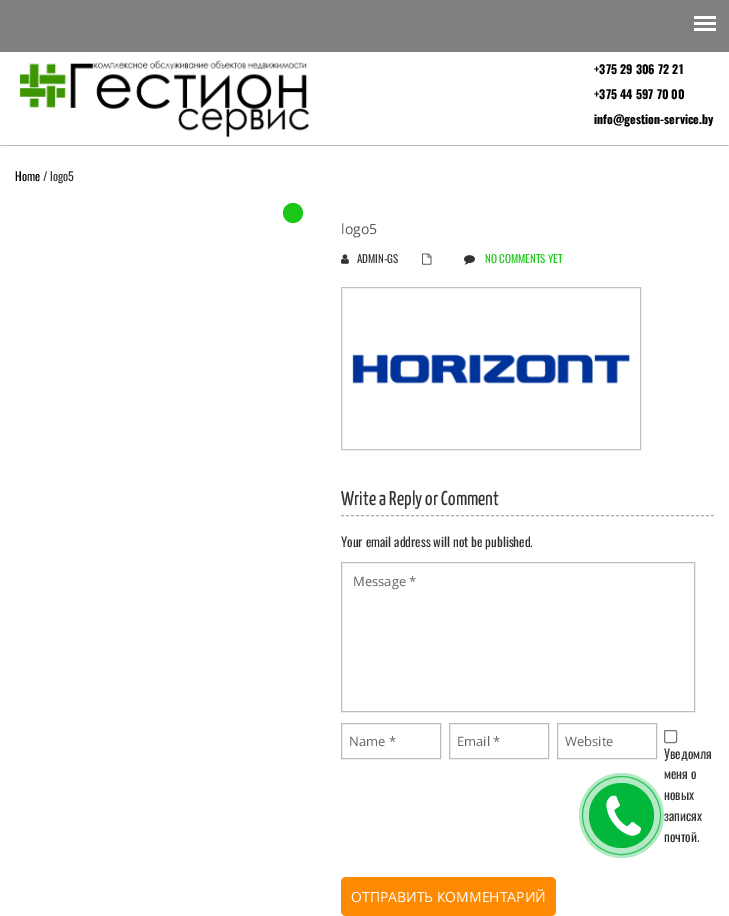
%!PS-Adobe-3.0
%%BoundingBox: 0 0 729 916
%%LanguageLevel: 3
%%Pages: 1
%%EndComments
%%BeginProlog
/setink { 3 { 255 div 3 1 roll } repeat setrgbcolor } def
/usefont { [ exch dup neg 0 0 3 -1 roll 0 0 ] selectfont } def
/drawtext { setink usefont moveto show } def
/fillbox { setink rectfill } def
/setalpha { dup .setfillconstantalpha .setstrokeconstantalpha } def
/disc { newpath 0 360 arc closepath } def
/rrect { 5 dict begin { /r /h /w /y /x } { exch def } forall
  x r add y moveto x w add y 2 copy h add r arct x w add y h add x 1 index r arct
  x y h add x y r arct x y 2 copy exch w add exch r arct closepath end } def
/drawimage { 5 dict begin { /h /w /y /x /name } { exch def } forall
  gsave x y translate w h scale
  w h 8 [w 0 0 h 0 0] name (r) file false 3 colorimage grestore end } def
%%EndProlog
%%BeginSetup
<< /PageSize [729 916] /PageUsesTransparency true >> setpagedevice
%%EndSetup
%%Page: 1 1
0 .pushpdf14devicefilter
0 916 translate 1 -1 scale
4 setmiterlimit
0 0 729 916 255 255 255 fillbox
0 0 729 52 128 128 128 fillbox
694 16 22 3 255 255 255 fillbox
694 22 22 3 255 255 255 fillbox
694 28 22 3 255 255 255 fillbox
187 187 187 setink
729 146 moveto 0 146 lineto 1 145 lineto 728 145 lineto closepath fill
(assets/img1.rgb) 19 60 291 78 drawimage
(+375 29 306 72 21) 594 74 /Oswald-Bold 12 0 0 0 drawtext
(+375 44 597 70 00) 594 99 /Oswald-Bold 12 0 0 0 drawtext
(info@gestion-service.by) 594 124 /Oswald-Bold 12 0 0 0 drawtext
(Home) 15 181 /Oswald-Regular 12 0 0 0 drawtext
(/ logo5) 43 181 /Oswald-Regular 12 51 51 51 drawtext
(logo5) 341 234 /OpenSans-Regular 14 85 85 85 drawtext
(assets/img2.rgb) 341 254 8 10 drawimage
(ADMIN-GS) 357 263 /Oswald-Regular 11 51 51 51 drawtext
(assets/img3.rgb) 422 253 10 12 drawimage
(assets/img4.rgb) 464 255 11 10 drawimage
26 199 24 setink
293 213 10 disc fill
(NO COMMENTS YET) 485 263 /Oswald-Regular 11 26 199 24 drawtext
194 194 194 setink
341.5 287.5 299 162 rectstroke
(assets/img5.rgb) 352 354 279 30 drawimage
170 170 170 setink
[3 2] 0 setdash
341 515.5 moveto 714 515.5 lineto stroke
(Write a Reply or Comment) 341 505 /YanoneKaffeesatz-Regular 20 51 51 51 drawtext
(Your email address will not be published.) 341 547 /Oswald-Regular 13 51 51 51 drawtext
187 187 187 setink
[] 0 setdash
341.5 562.5 353 149 rectstroke
(Message *) 353 586 /OpenSans-Regular 13 102 102 102 drawtext
187 187 187 setink
341.5 723.5 99 35 rectstroke
(Name *) 349 746 /OpenSans-Regular 13 102 102 102 drawtext
187 187 187 setink
449.5 723.5 99 35 rectstroke
(Email *) 457 746 /OpenSans-Regular 13 102 102 102 drawtext
187 187 187 setink
557.5 723.5 99 35 rectstroke
(Website) 565 746 /OpenSans-Regular 13 102 102 102 drawtext
118 118 118 setink
664.5 730.5 12 12 1.5 rrect stroke
(Уведомля) 664 759 /Oswald-Regular 13 51 51 51 drawtext
(меня о) 664 779 /Oswald-Regular 13 51 51 51 drawtext
(новых) 664 800 /Oswald-Regular 13 51 51 51 drawtext
(записях) 664 821 /Oswald-Regular 13 51 51 51 drawtext
(почтой.) 664 842 /Oswald-Regular 13 51 51 51 drawtext
254 138 2 setink
341 877 215 39 5 rrect fill
(ОТПРАВИТЬ КОММЕНТАРИЙ) 351 902 /OpenSans-Regular 14 255 255 255 drawtext
0.3 setalpha
3 183 58 setink
621.5 815.5 42.5 disc fill
1 setalpha
44 195 90 setink
621.5 815.5 39 disc stroke
3 183 58 setink
621.5 815.5 32.5 disc fill
(assets/img6.rgb) 606 795 35 41 drawimage
.poppdf14devicefilter showpage
%%EOF
